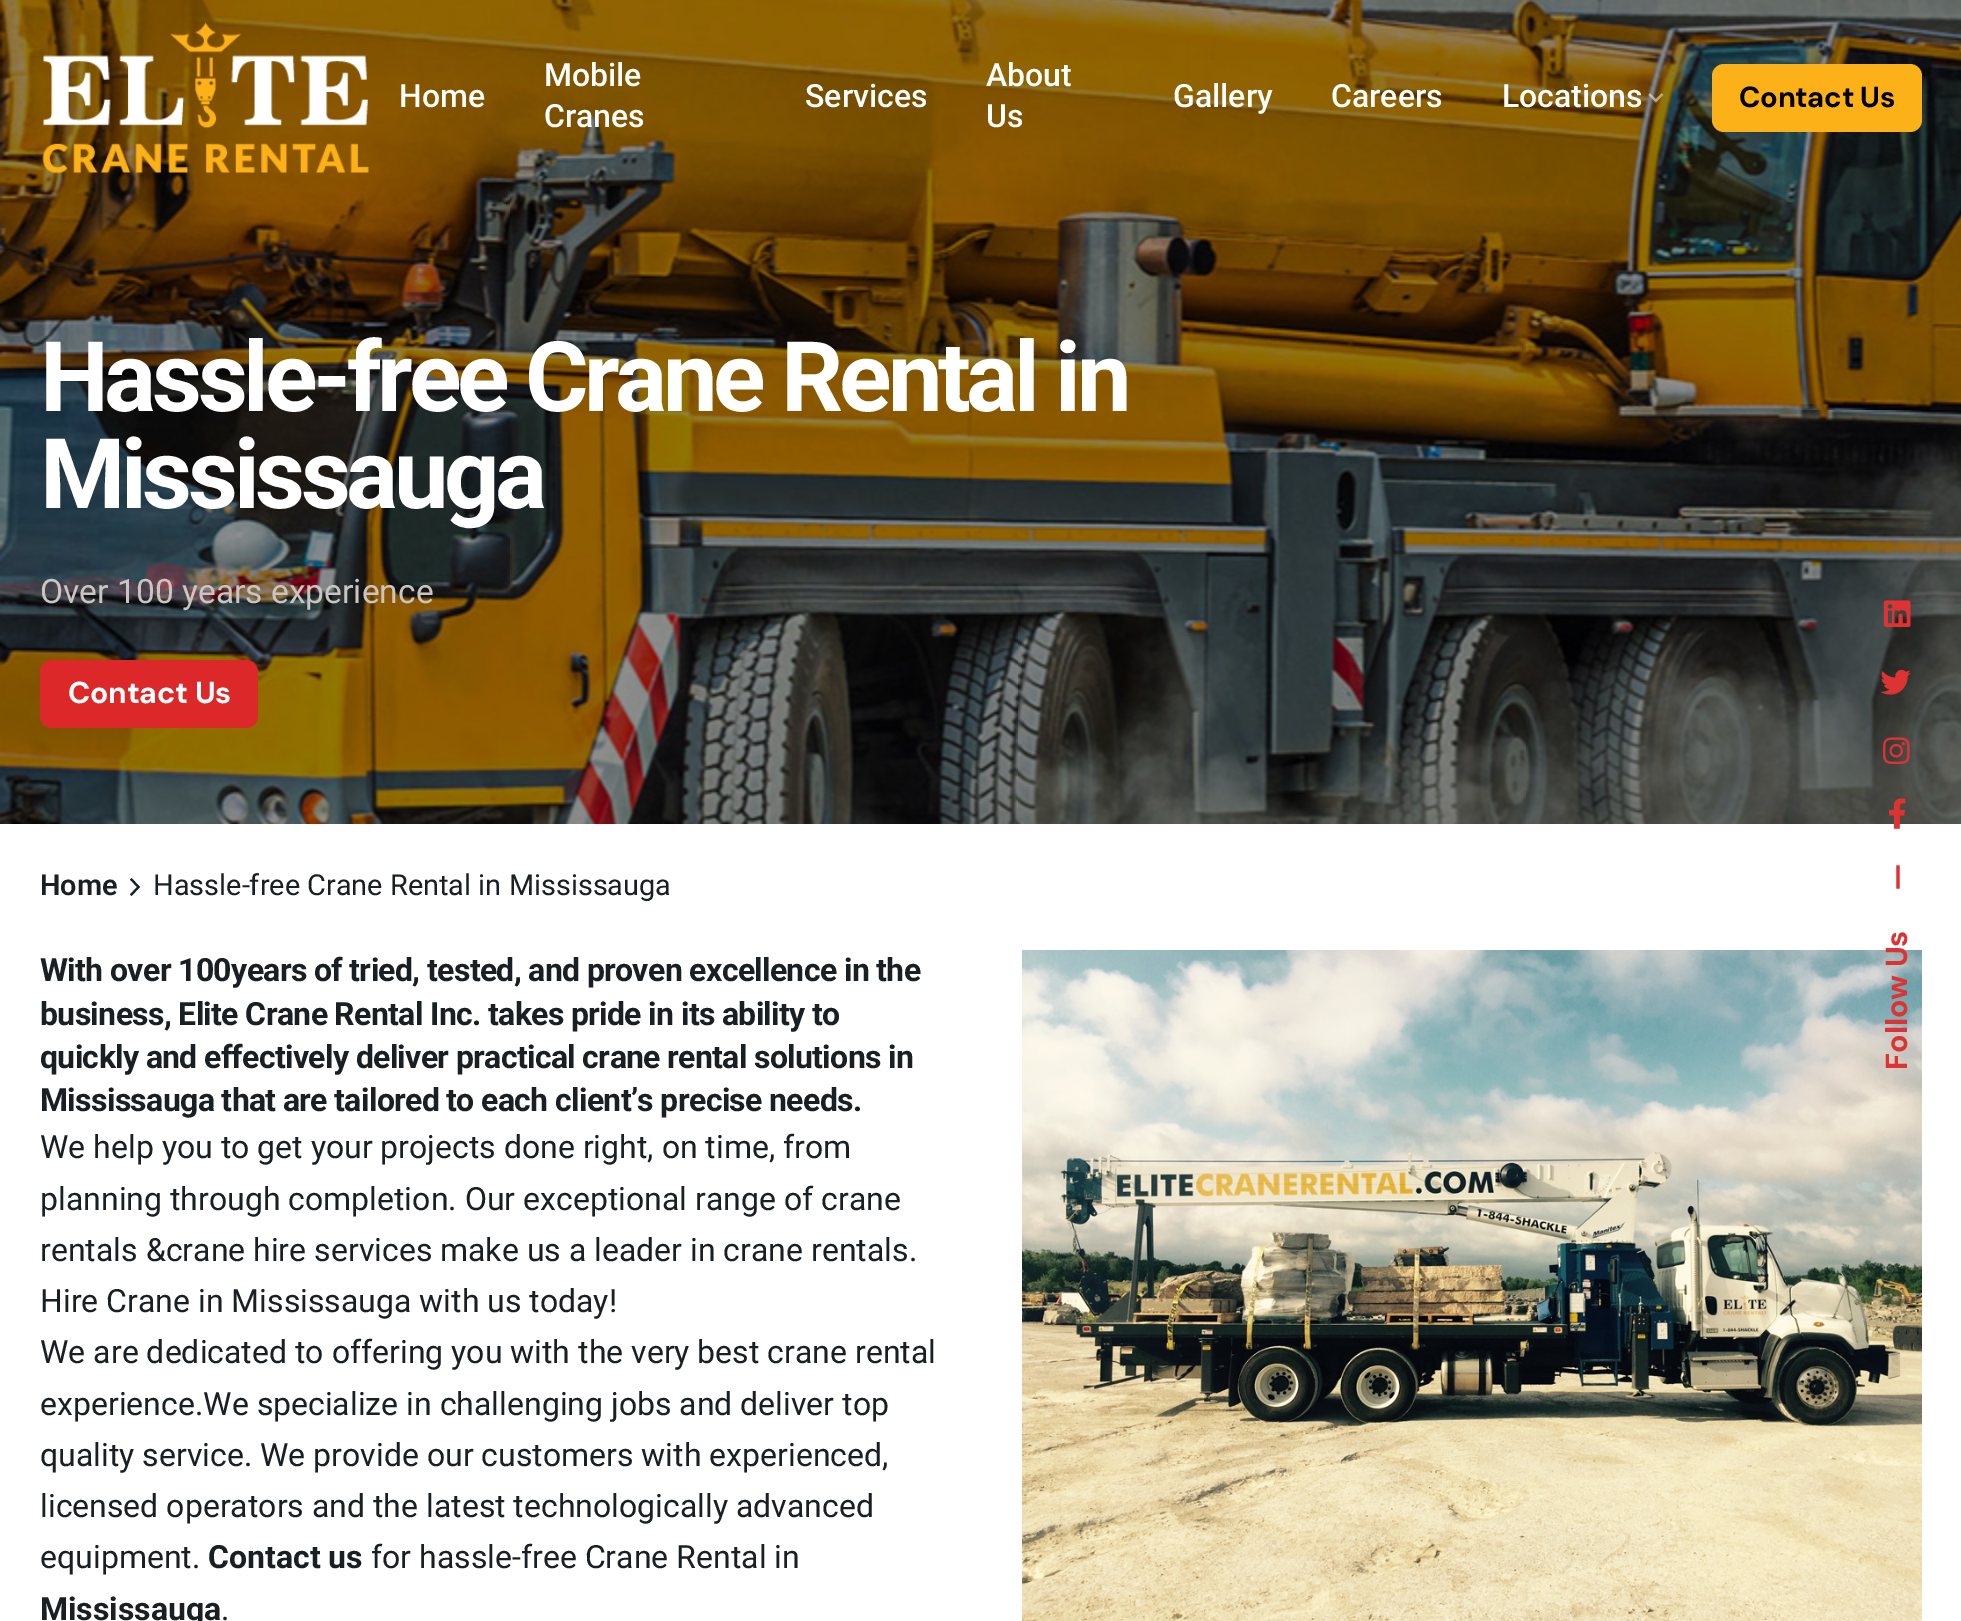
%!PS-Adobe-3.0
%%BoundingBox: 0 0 1961 1621
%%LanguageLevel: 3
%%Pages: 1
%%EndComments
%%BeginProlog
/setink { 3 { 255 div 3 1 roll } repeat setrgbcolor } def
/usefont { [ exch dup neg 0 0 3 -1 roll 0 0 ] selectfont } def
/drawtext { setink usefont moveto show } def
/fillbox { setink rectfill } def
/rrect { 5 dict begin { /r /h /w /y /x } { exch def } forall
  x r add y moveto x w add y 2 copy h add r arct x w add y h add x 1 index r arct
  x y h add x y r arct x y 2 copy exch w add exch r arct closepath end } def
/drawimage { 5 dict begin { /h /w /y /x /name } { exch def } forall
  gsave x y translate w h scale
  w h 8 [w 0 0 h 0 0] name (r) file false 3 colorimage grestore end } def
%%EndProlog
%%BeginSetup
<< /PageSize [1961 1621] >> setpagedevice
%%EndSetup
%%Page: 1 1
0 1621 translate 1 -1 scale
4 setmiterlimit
0 0 1961 1621 255 255 255 fillbox
(assets/img3.rgb) 0 0 1961 824 drawimage
(assets/img1.rgb) 42 22 327 152 drawimage
(Home) 399 107 /Roboto-Medium 32 255 255 255 drawtext
(Mobile) 544 86 /Roboto-Medium 32 255 255 255 drawtext
(Cranes) 544 127 /Roboto-Medium 32 255 255 255 drawtext
(Services) 805 107 /Roboto-Medium 32 255 255 255 drawtext
(About) 986 86 /Roboto-Medium 32 255 255 255 drawtext
(Us) 986 127 /Roboto-Medium 32 255 255 255 drawtext
(Gallery) 1173 107 /Roboto-Medium 32 255 255 255 drawtext
(Careers) 1331 107 /Roboto-Medium 32 255 255 255 drawtext
(Locations) 1502 107 /Roboto-Medium 32 255 255 255 drawtext
(assets/img2.rgb) 1648 93 16 10 drawimage
251 177 23 setink
1712 64 210 68 12 rrect fill
/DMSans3-Bold 29 usefont
0 0 0 setink
1739 107 moveto -0.25 0 (Contact Us) ashow
/Roboto-Bold 97.4 usefont
255 255 255 setink
40 411 moveto -4.4 0 (Hassle-free Crane Rental in) ashow
40 508 moveto -4.4 0 (Mississauga) ashow
(Over 100 years experience) 40 603 /Roboto-Regular 33.6 202 197 194 drawtext
220 40 40 setink
40 660 218 68 12 rrect fill
/DMSans-Bold 30.25 usefont
255 255 255 setink
68 703 moveto -0.25 0 (Contact Us) ashow
(Home) 40 895 /Roboto-SemiBold 28.9 25 31 35 drawtext
130 894.5 moveto 131.5 896 lineto 140 887 lineto 131.5 878 lineto 130 879.5 lineto 137 887 lineto closepath fill
(Hassle-free Crane Rental in Mississauga) 153 895 /Roboto-Regular 28.9 25 31 35 drawtext
/Roboto-Bold 32 usefont
40 981 moveto -0.65 0 (With over 100years of tried, tested, and proven excellence in the) ashow
40 1025 moveto -0.65 0 (business, Elite Crane Rental Inc. takes pride in its ability to) ashow
40 1068 moveto -0.65 0 (quickly and effectively deliver practical crane rental solutions in) ashow
40 1111 moveto -0.65 0 (Mississauga that are tailored to each client’s precise needs.) ashow
(We help you to get your projects done right, on time, from) 40 1158 /Roboto-Regular 32 25 31 35 drawtext
(planning through completion. Our exceptional range of crane) 40 1210 /Roboto-Regular 32 25 31 35 drawtext
(rentals &crane hire services make us a leader in crane rentals.) 40 1261 /Roboto-Regular 32 25 31 35 drawtext
(Hire Crane in Mississauga with us today!) 40 1312 /Roboto-Regular 32 25 31 35 drawtext
(We are dedicated to offering you with the very best crane rental) 40 1363 /Roboto-Regular 32 25 31 35 drawtext
(experience.We specialize in challenging jobs and deliver top) 40 1415 /Roboto-Regular 32 25 31 35 drawtext
(quality service. We provide our customers with experienced,) 40 1466 /Roboto-Regular 32 25 31 35 drawtext
(licensed operators and the latest technologically advanced) 40 1517 /Roboto-Regular 32 25 31 35 drawtext
(equipment.) 40 1568 /Roboto-Regular 32 25 31 35 drawtext
(Contact us) 208 1568 /Roboto-Bold 32 25 31 35 drawtext
(for hassle-free Crane Rental in) 371 1568 /Roboto-Regular 32 25 31 35 drawtext
(Mississauga) 40 1620 /Roboto-Bold 32 25 31 35 drawtext
(.) 221 1620 /Roboto-Regular 32 25 31 35 drawtext
(assets/img4.rgb) 1022 950 900 671 drawimage
(assets/img5.rgb) 1883 600 28 27 drawimage
(assets/img6.rgb) 1880 669 31 26 drawimage
(assets/img7.rgb) 1882 737 28 28 drawimage
(assets/img8.rgb) 1889 798 17 31 drawimage
/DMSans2-Bold 30.5 usefont
221 51 51 setink
gsave 1907 891 translate -90 rotate 0 0 moveto (—) show grestore
gsave 1907 1070 translate -90 rotate 0 0 moveto (Follow Us) show grestore
showpage
%%EOF
